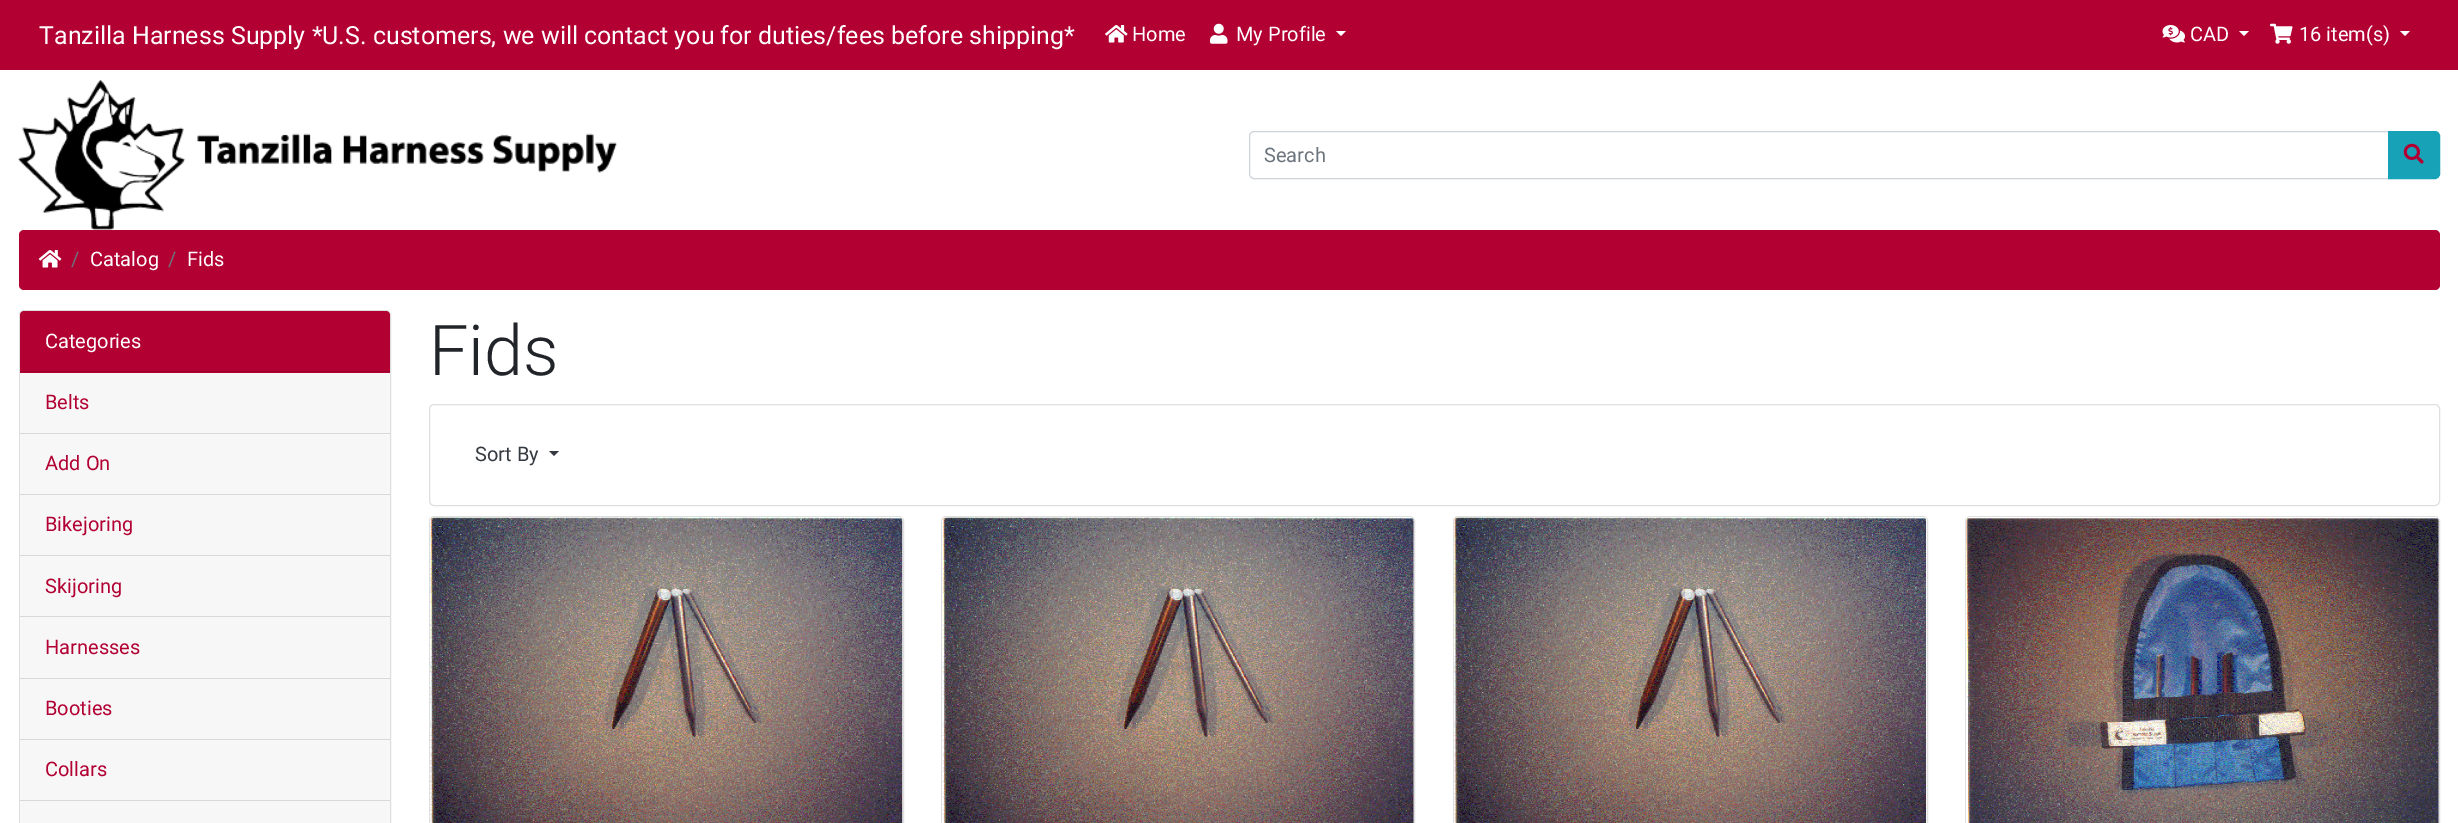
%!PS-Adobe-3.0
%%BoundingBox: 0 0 2458 823
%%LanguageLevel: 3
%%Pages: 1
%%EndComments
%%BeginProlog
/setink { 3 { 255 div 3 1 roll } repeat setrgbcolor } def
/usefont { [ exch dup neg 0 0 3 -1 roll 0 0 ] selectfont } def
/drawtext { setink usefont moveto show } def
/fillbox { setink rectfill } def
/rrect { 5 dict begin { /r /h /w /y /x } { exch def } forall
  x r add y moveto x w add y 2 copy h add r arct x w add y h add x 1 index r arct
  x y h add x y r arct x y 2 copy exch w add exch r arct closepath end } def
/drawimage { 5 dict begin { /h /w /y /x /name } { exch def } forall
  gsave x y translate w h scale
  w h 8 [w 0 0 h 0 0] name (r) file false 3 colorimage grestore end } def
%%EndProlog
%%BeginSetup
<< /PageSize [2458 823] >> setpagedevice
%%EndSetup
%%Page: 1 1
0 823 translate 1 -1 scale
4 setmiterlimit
0 0 2458 823 255 255 255 fillbox
0 0 2458 70 178 0 51 fillbox
(Tanzilla Harness Supply *U.S. customers, we will contact you for duties/fees before shipping*) 39 44 /Roboto-Regular 25 255 255 255 drawtext
(assets/img1.rgb) 1105 25 23 18 drawimage
(Home) 1132 41 /Roboto-Regular 20 255 255 255 drawtext
(assets/img2.rgb) 1210 23 18 21 drawimage
(My Profile) 1236 41 /Roboto-Regular 20 255 255 255 drawtext
1336 31 moveto 1346 31 lineto 1341 36 lineto closepath fill
(assets/img3.rgb) 2162 25 23 18 drawimage
(CAD) 2190 41 /Roboto-Regular 20 255 255 255 drawtext
2239 31 moveto 2249 31 lineto 2244 36 lineto closepath fill
(assets/img4.rgb) 2270 23 23 21 drawimage
(16 item\(s\)) 2299 41 /Roboto-Regular 20 255 255 255 drawtext
2400 31 moveto 2410 31 lineto 2405 36 lineto closepath fill
(assets/img5.rgb) 18 80 599 150 drawimage
206 212 218 setink
1254 131.5 moveto 2388.5 131.5 lineto 2388.5 178.5 lineto 1254 178.5 lineto 1251.5 178.5 1249.5 176.5 1249.5 174 curveto 1249.5 136 lineto 1249.5 133.5 1251.5 131.5 1254 131.5 curveto closepath stroke
(Search) 1264 162 /Roboto-Regular 20 108 117 125 drawtext
23 162 184 setink
2388.5 131.5 moveto 2435 131.5 lineto 2437.5 131.5 2439.5 133.5 2439.5 136 curveto 2439.5 174 lineto 2439.5 176.5 2437.5 178.5 2435 178.5 curveto 2388.5 178.5 lineto closepath gsave fill grestore
stroke
(assets/img6.rgb) 2403 143 21 21 drawimage
178 0 51 setink
19 230 2421 60 5 rrect fill
(assets/img7.rgb) 38 250 24 18 drawimage
(/) 71 266 /Roboto-Regular 20 108 117 125 drawtext
(Catalog) 90 266 /Roboto-Regular 20 255 255 255 drawtext
(/) 168 266 /Roboto-Regular 20 108 117 125 drawtext
(Fids) 187 266 /Roboto-Regular 20 255 255 255 drawtext
223 223 223 setink
19.5 310.5 371 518 4.5 rrect stroke
178 0 51 setink
24 311 moveto 386 311 lineto 388 311 390 313 390 315 curveto 390 373 lineto 20 373 lineto 20 315 lineto 20 313 22 311 24 311 curveto closepath fill
20 371 370 1 156 0 45 fillbox
(Categories) 45 348 /Roboto-Regular 20 255 255 255 drawtext
20 373 370 60 247 247 247 fillbox
20 433 370 1 216 216 216 fillbox
(Belts) 45 409 /Roboto-Regular 20 178 0 51 drawtext
20 434 370 60 247 247 247 fillbox
20 494 370 1 216 216 216 fillbox
(Add On) 45 470 /Roboto-Regular 20 178 0 51 drawtext
20 495 370 60 247 247 247 fillbox
20 555 370 1 216 216 216 fillbox
(Bikejoring) 45 531 /Roboto-Regular 20 178 0 51 drawtext
20 556 370 122 247 247 247 fillbox
20 616 370 1 216 216 216 fillbox
(Skijoring) 45 593 /Roboto-Regular 20 178 0 51 drawtext
20 678 370 1 216 216 216 fillbox
(Harnesses) 45 654 /Roboto-Regular 20 178 0 51 drawtext
20 679 370 60 247 247 247 fillbox
20 739 370 1 216 216 216 fillbox
(Booties) 45 715 /Roboto-Regular 20 178 0 51 drawtext
20 740 370 60 247 247 247 fillbox
20 800 370 1 216 216 216 fillbox
(Collars) 45 776 /Roboto-Regular 20 178 0 51 drawtext
20 801 370 22 247 247 247 fillbox
(Fids) 429 375 /Roboto-Light 70 33 37 41 drawtext
223 223 223 setink
429.5 404.5 2010 101 4.5 rrect stroke
(Sort By) 475 461 /Roboto-Regular 20 52 58 64 drawtext
549 451 moveto 559 451 lineto 554 456 lineto closepath fill
223 223 223 setink
429.5 516.5 474 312 4.5 rrect stroke
(assets/img8.rgb) 430 517 473 306 drawimage
941.5 516.5 473 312 4.5 rrect stroke
(assets/img9.rgb) 942 517 472 306 drawimage
1453.5 516.5 474 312 4.5 rrect stroke
(assets/img10.rgb) 1454 517 473 306 drawimage
1965.5 516.5 474 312 4.5 rrect stroke
(assets/img11.rgb) 1966 517 473 306 drawimage
showpage
%%EOF
